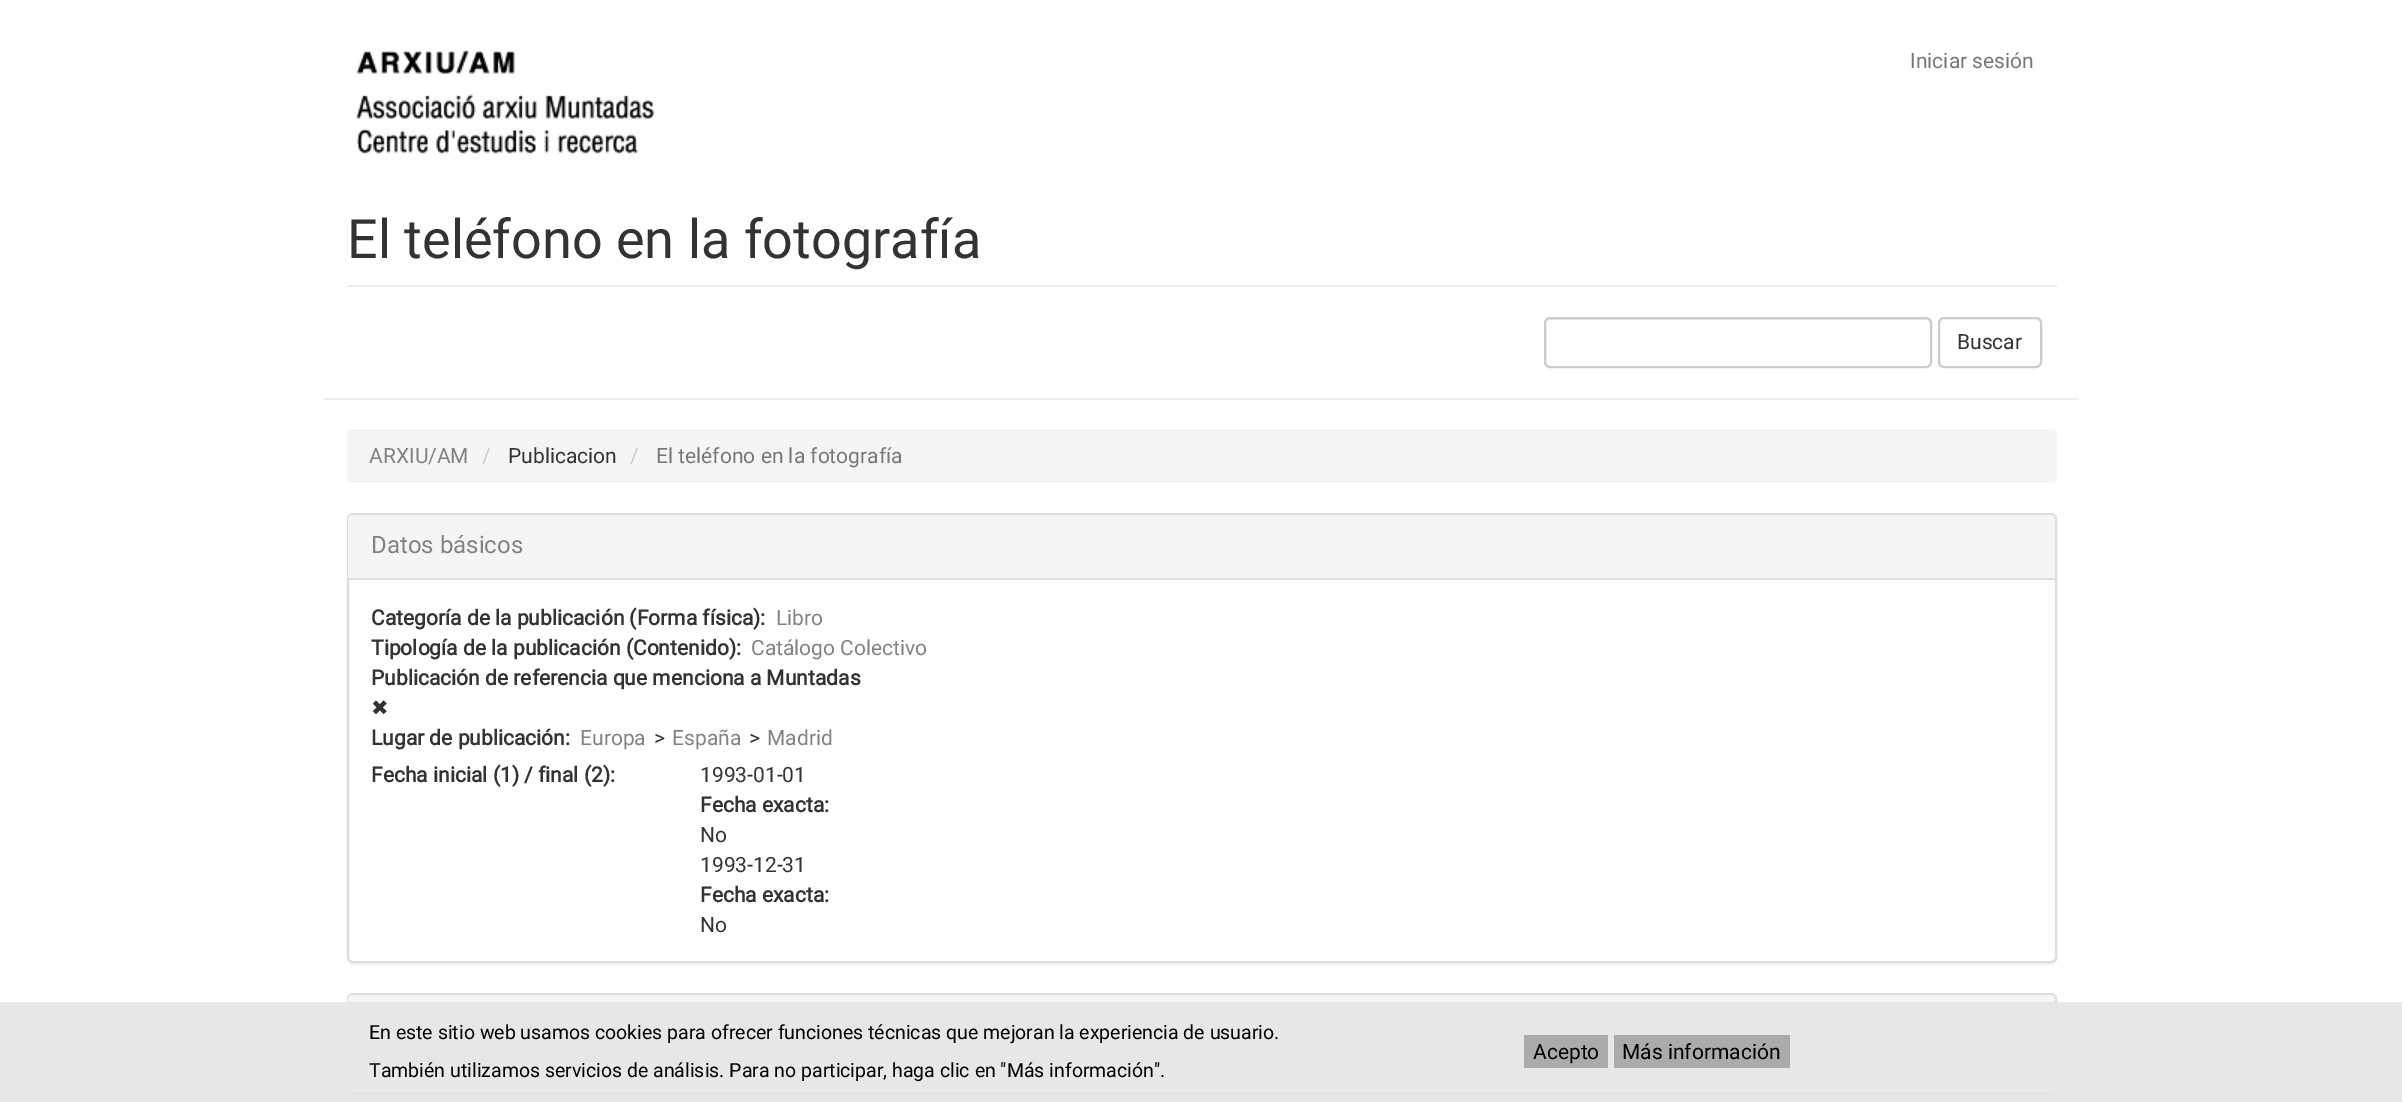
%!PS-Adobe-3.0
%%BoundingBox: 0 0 2402 1102
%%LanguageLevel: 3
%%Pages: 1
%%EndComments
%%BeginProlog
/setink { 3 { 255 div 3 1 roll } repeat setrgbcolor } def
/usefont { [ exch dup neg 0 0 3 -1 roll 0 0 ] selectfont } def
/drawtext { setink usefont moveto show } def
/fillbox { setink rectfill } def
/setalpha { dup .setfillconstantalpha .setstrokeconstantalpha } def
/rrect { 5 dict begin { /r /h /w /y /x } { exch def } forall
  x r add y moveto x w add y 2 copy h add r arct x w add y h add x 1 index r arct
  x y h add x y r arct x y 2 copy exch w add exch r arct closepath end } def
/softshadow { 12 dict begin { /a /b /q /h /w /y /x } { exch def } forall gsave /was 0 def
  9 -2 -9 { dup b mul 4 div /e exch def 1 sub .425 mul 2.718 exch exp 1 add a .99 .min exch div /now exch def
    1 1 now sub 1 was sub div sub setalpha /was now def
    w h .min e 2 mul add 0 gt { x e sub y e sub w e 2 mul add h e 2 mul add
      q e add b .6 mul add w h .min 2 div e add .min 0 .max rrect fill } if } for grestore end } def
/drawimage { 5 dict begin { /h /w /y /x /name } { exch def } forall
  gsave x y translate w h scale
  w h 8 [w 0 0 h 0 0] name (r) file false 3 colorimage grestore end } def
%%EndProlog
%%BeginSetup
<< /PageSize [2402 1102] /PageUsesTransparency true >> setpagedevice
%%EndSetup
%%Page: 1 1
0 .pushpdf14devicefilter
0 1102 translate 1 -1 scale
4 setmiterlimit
0 0 2402 1102 255 255 255 fillbox
(assets/img1.rgb) 356 50 299 104 drawimage
(Iniciar sesión) 1910 68 /Roboto-Regular 21 119 119 119 drawtext
324 398 1755 2 238 238 238 fillbox
347 285 1710 2 238 238 238 fillbox
(El teléfono en la fotografía) 347 258 /Roboto-Regular 54 51 51 51 drawtext
236 236 236 setink
1550 320 moveto 1926 320 lineto 1928 320 1930 322 1930 324 curveto 1930 364 lineto 1931 363 1931 362 1931 361 curveto 1931 323 lineto 1931 320 1929 318 1926 318 curveto 1550 318 lineto 1547 318 1545 320 1545 323 curveto 1545 324 lineto 1545 322 1547 320 1550 320 curveto closepath fill
204 204 204 setink
2 setlinewidth
1545 318 386 49 5 rrect stroke
1939 318 102 49 5 rrect stroke
(Buscar) 1957 349 /Roboto-Regular 21 51 51 51 drawtext
245 245 245 setink
347 429 1710 54 6 rrect fill
(ARXIU/AM) 369 463 /Roboto-Regular 21 130 130 130 drawtext
(/) 482 463 /Roboto-Regular 21 204 204 204 drawtext
(Publicacion) 508 463 /Roboto-Regular 21 51 51 51 drawtext
(/) 630 463 /Roboto-Regular 21 204 204 204 drawtext
(El teléfono en la fotografía) 656 463 /Roboto-Regular 21 119 119 119 drawtext
0 0 0 setink
347 515 1710 450 6 1 0.05 softshadow
255 255 255 setink
348 514 1708 448 5 rrect gsave fill grestore
221 221 221 setink
stroke
245 245 245 setink
353 515 moveto 2050 515 lineto 2053 515 2055 517 2055 520 curveto 2055 579 lineto 348 579 lineto 348 520 lineto 348 517 350 515 353 515 curveto closepath fill
348 578 1707 2 221 221 221 fillbox
(Datos básicos) 371 553 /Roboto-Regular 24 130 130 130 drawtext
(Categoría de la publicación \(Forma física\):) 371 625 /Roboto-Bold 21 51 51 51 drawtext
(Libro) 776 625 /Roboto-Regular 21 130 130 130 drawtext
(Tipología de la publicación \(Contenido\):) 371 655 /Roboto-Bold 21 51 51 51 drawtext
(Catálogo Colectivo) 751 655 /Roboto-Regular 21 130 130 130 drawtext
(Publicación de referencia que menciona a Muntadas) 371 685 /Roboto-Bold 21 51 51 51 drawtext
(✖) 371 715 /DejaVuSans-Regular 21 51 51 51 drawtext
(Lugar de publicación:) 371 745 /Roboto-Bold 21 51 51 51 drawtext
(Europa) 580 745 /Roboto-Regular 21 130 130 130 drawtext
(>) 654 745 /Roboto-Regular 21 51 51 51 drawtext
(España) 672 745 /Roboto-Regular 21 130 130 130 drawtext
(>) 749 745 /Roboto-Regular 21 51 51 51 drawtext
(Madrid) 767 745 /Roboto-Regular 21 130 130 130 drawtext
(Fecha inicial \(1\) / final \(2\):) 371 782 /Roboto-Bold 21 51 51 51 drawtext
(1993-01-01) 700 782 /Roboto-Regular 21 51 51 51 drawtext
(Fecha exacta:) 700 812 /Roboto-Bold 21 51 51 51 drawtext
(No) 700 842 /Roboto-Regular 21 51 51 51 drawtext
(1993-12-31) 700 872 /Roboto-Regular 21 51 51 51 drawtext
(Fecha exacta:) 700 902 /Roboto-Bold 21 51 51 51 drawtext
(No) 700 932 /Roboto-Regular 21 51 51 51 drawtext
0 0 0 setink
347 995 1710 69 6 1 0.05 softshadow
255 255 255 setink
348 994 1708 67 5 rrect gsave fill grestore
221 221 221 setink
stroke
245 245 245 setink
353 995 moveto 2050 995 lineto 2053 995 2055 997 2055 1000 curveto 2055 1061 lineto 348 1061 lineto 348 1000 lineto 348 997 350 995 353 995 curveto closepath fill
348 1059 1707 2 221 221 221 fillbox
348 1093 1708 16 5 rrect stroke
245 245 245 setink
353 1094 moveto 2050 1094 lineto 2053 1094 2055 1096 2055 1099 curveto 2055 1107 lineto 348 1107 lineto 348 1099 lineto 348 1096 350 1094 353 1094 curveto closepath fill
0.9 setalpha
0 1002 2402 100 230 230 230 fillbox
1 setalpha
(En este sitio web usamos cookies para ofrecer funciones técnicas que mejoran la experiencia de usuario.) 369 1039 /Roboto-Regular 19.5 0 0 0 drawtext
(También utilizamos servicios de análisis. Para no participar, haga clic en "Más información".) 369 1077 /Roboto-Regular 19.5 0 0 0 drawtext
1524 1035 84 33 171 171 171 fillbox
(Acepto) 1533 1059 /Roboto-Regular 21 0 0 0 drawtext
1614 1035 176 33 171 171 171 fillbox
(Más información) 1622 1059 /Roboto-Regular 21 0 0 0 drawtext
.poppdf14devicefilter showpage
%%EOF
